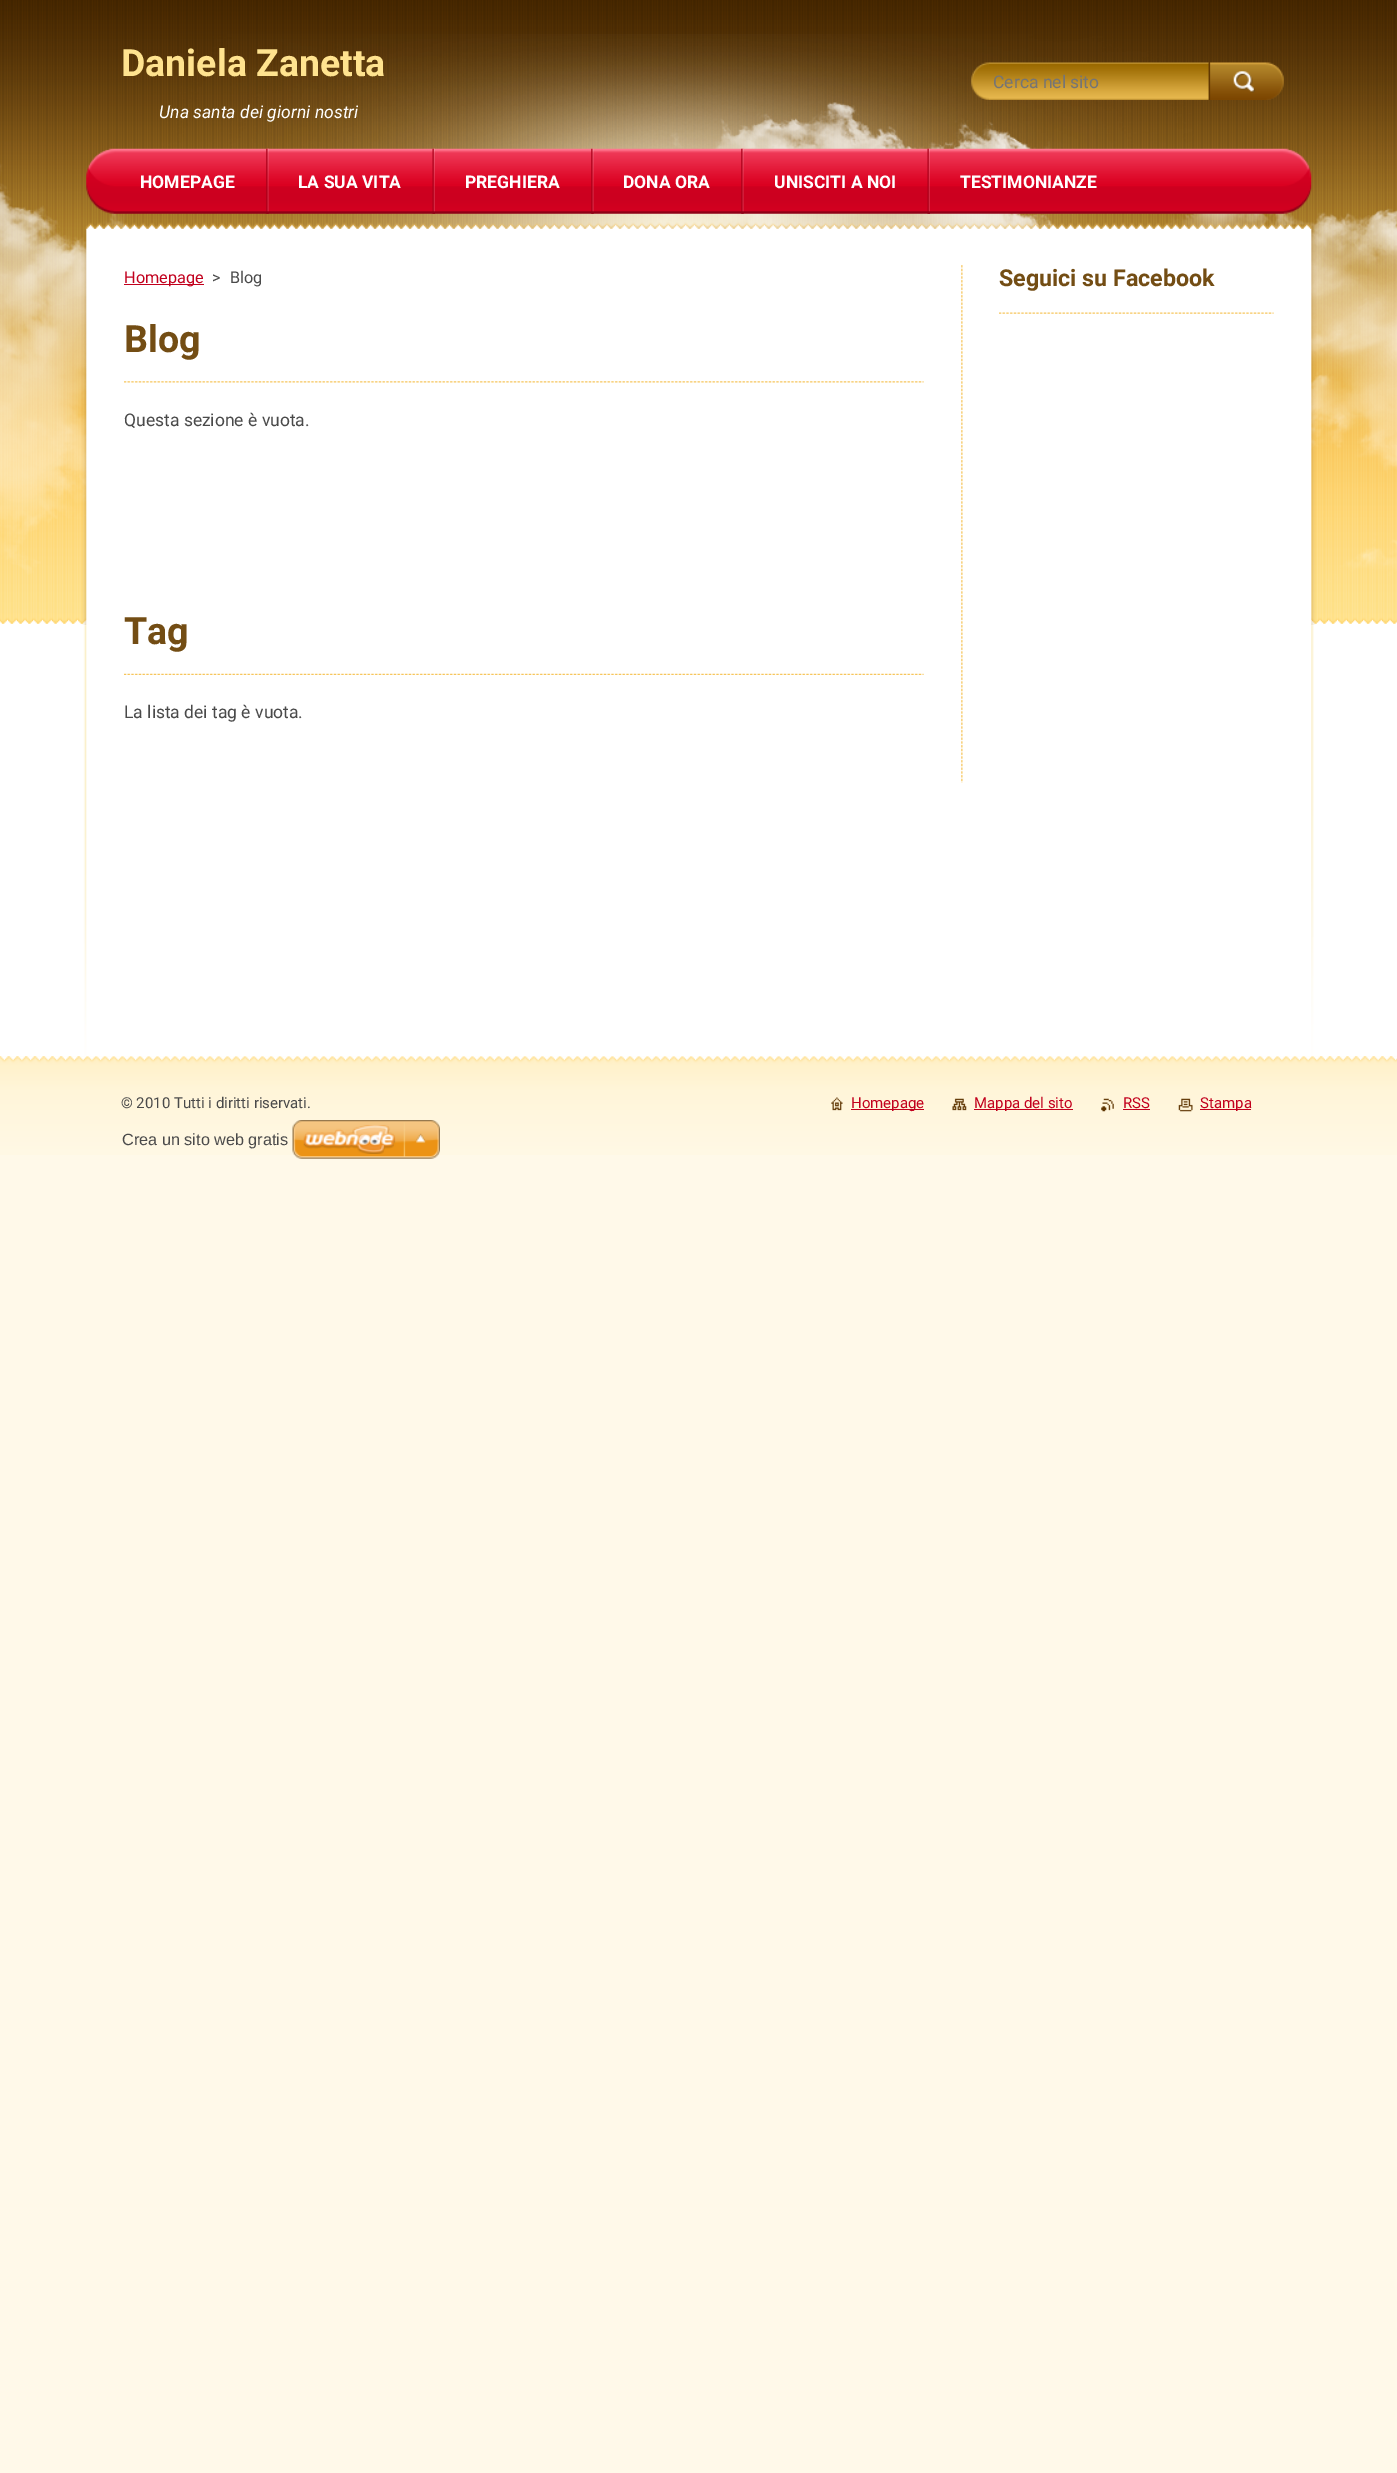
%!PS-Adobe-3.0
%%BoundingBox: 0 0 1397 2473
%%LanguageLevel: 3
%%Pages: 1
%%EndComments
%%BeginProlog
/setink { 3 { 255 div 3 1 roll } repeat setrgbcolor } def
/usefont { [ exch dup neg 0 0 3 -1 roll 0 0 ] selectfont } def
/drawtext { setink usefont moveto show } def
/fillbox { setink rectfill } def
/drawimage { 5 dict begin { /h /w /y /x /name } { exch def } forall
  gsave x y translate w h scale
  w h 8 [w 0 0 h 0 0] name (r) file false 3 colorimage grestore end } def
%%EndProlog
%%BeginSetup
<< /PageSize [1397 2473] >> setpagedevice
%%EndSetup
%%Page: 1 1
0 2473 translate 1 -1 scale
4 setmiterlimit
0 0 1397 2473 255 249 233 fillbox
0 623 1397 433 255 255 255 fillbox
(assets/img1.rgb) 0 0 1397 624 drawimage
(assets/img2.rgb) 0 34 1397 591 drawimage
(Daniela Zanetta) 121 76 /Roboto-Bold 37.5 255 227 143 drawtext
(Una santa dei giorni nostri) 159 118 /Roboto-Italic 17.5 255 255 255 drawtext
(assets/img3.rgb) 971 62 238 38 drawimage
(Cerca nel sito) 993 88 /Roboto-Regular 17.5 117 117 117 drawtext
(assets/img4.rgb) 1208 62 76 38 drawimage
(assets/img5.rgb) 86 148 1226 66 drawimage
(HOMEPAGE) 140 188 /Roboto-Bold 17.5 255 255 255 drawtext
(assets/img6.rgb) 266 148 3 66 drawimage
(LA SUA VITA) 298 188 /Roboto-Bold 17.5 255 255 255 drawtext
(assets/img7.rgb) 432 148 3 66 drawimage
(PREGHIERA) 465 188 /Roboto-Bold 17.5 255 255 255 drawtext
(assets/img8.rgb) 591 148 3 66 drawimage
(DONA ORA) 623 188 /Roboto-Bold 17.5 255 255 255 drawtext
(assets/img9.rgb) 741 148 3 66 drawimage
(UNISCITI A NOI) 774 188 /Roboto-Bold 17.5 255 255 255 drawtext
(assets/img10.rgb) 927 148 3 66 drawimage
(TESTIMONIANZE) 960 188 /Roboto-Bold 17.5 255 255 255 drawtext
(assets/img16.rgb) 0 1056 1397 99 drawimage
(assets/img11.rgb) 83 625 1231 432 drawimage
(assets/img12.rgb) 961 265 2 518 drawimage
124 284 80 1 194 0 29 fillbox
(Homepage) 124 283 /Roboto-Regular 16.25 194 0 29 drawtext
(>) 212 283 /Roboto-Regular 16.25 74 74 74 drawtext
(Blog) 230 283 /Roboto-Regular 16.25 74 74 74 drawtext
(assets/img13.rgb) 124 381 800 2 drawimage
(Blog) 124 352 /Roboto-Bold 37.5 115 77 20 drawtext
(Questa sezione è vuota.) 124 426 /Roboto-Regular 17.5 74 74 74 drawtext
(assets/img14.rgb) 124 673 800 2 drawimage
(Tag) 124 644 /Roboto-Bold 37.5 115 77 20 drawtext
(La lista dei tag è vuota.) 124 718 /Roboto-Regular 17.5 74 74 74 drawtext
(assets/img15.rgb) 999 312 275 2 drawimage
(Seguici su Facebook) 999 286 /Roboto-Bold 23.25 115 77 20 drawtext
(© 2010 Tutti i diritti riservati.) 121 1108 /Roboto-Regular 15 74 74 74 drawtext
(assets/img17.rgb) 831 1097 12 14 drawimage
851 1109 73 1 194 0 29 fillbox
(Homepage) 851 1108 /Roboto-Regular 15 194 0 29 drawtext
(assets/img18.rgb) 952 1098 15 13 drawimage
974 1109 99 1 194 0 29 fillbox
(Mappa del sito) 974 1108 /Roboto-Regular 15 194 0 29 drawtext
(assets/img19.rgb) 1101 1098 13 14 drawimage
(RSS) 1123 1108 /Roboto-Regular 15 194 0 29 drawtext
1123 1109 27 1 194 0 29 fillbox
(assets/img20.rgb) 1178 1098 15 14 drawimage
1200 1109 51 1 194 0 29 fillbox
(Stampa) 1200 1108 /Roboto-Regular 15 194 0 29 drawtext
(Crea un sito web gratis) 122 1145 /LiberationSans-Regular 16.25 74 74 74 drawtext
(assets/img21.rgb) 292 1120 148 39 drawimage
showpage
%%EOF
